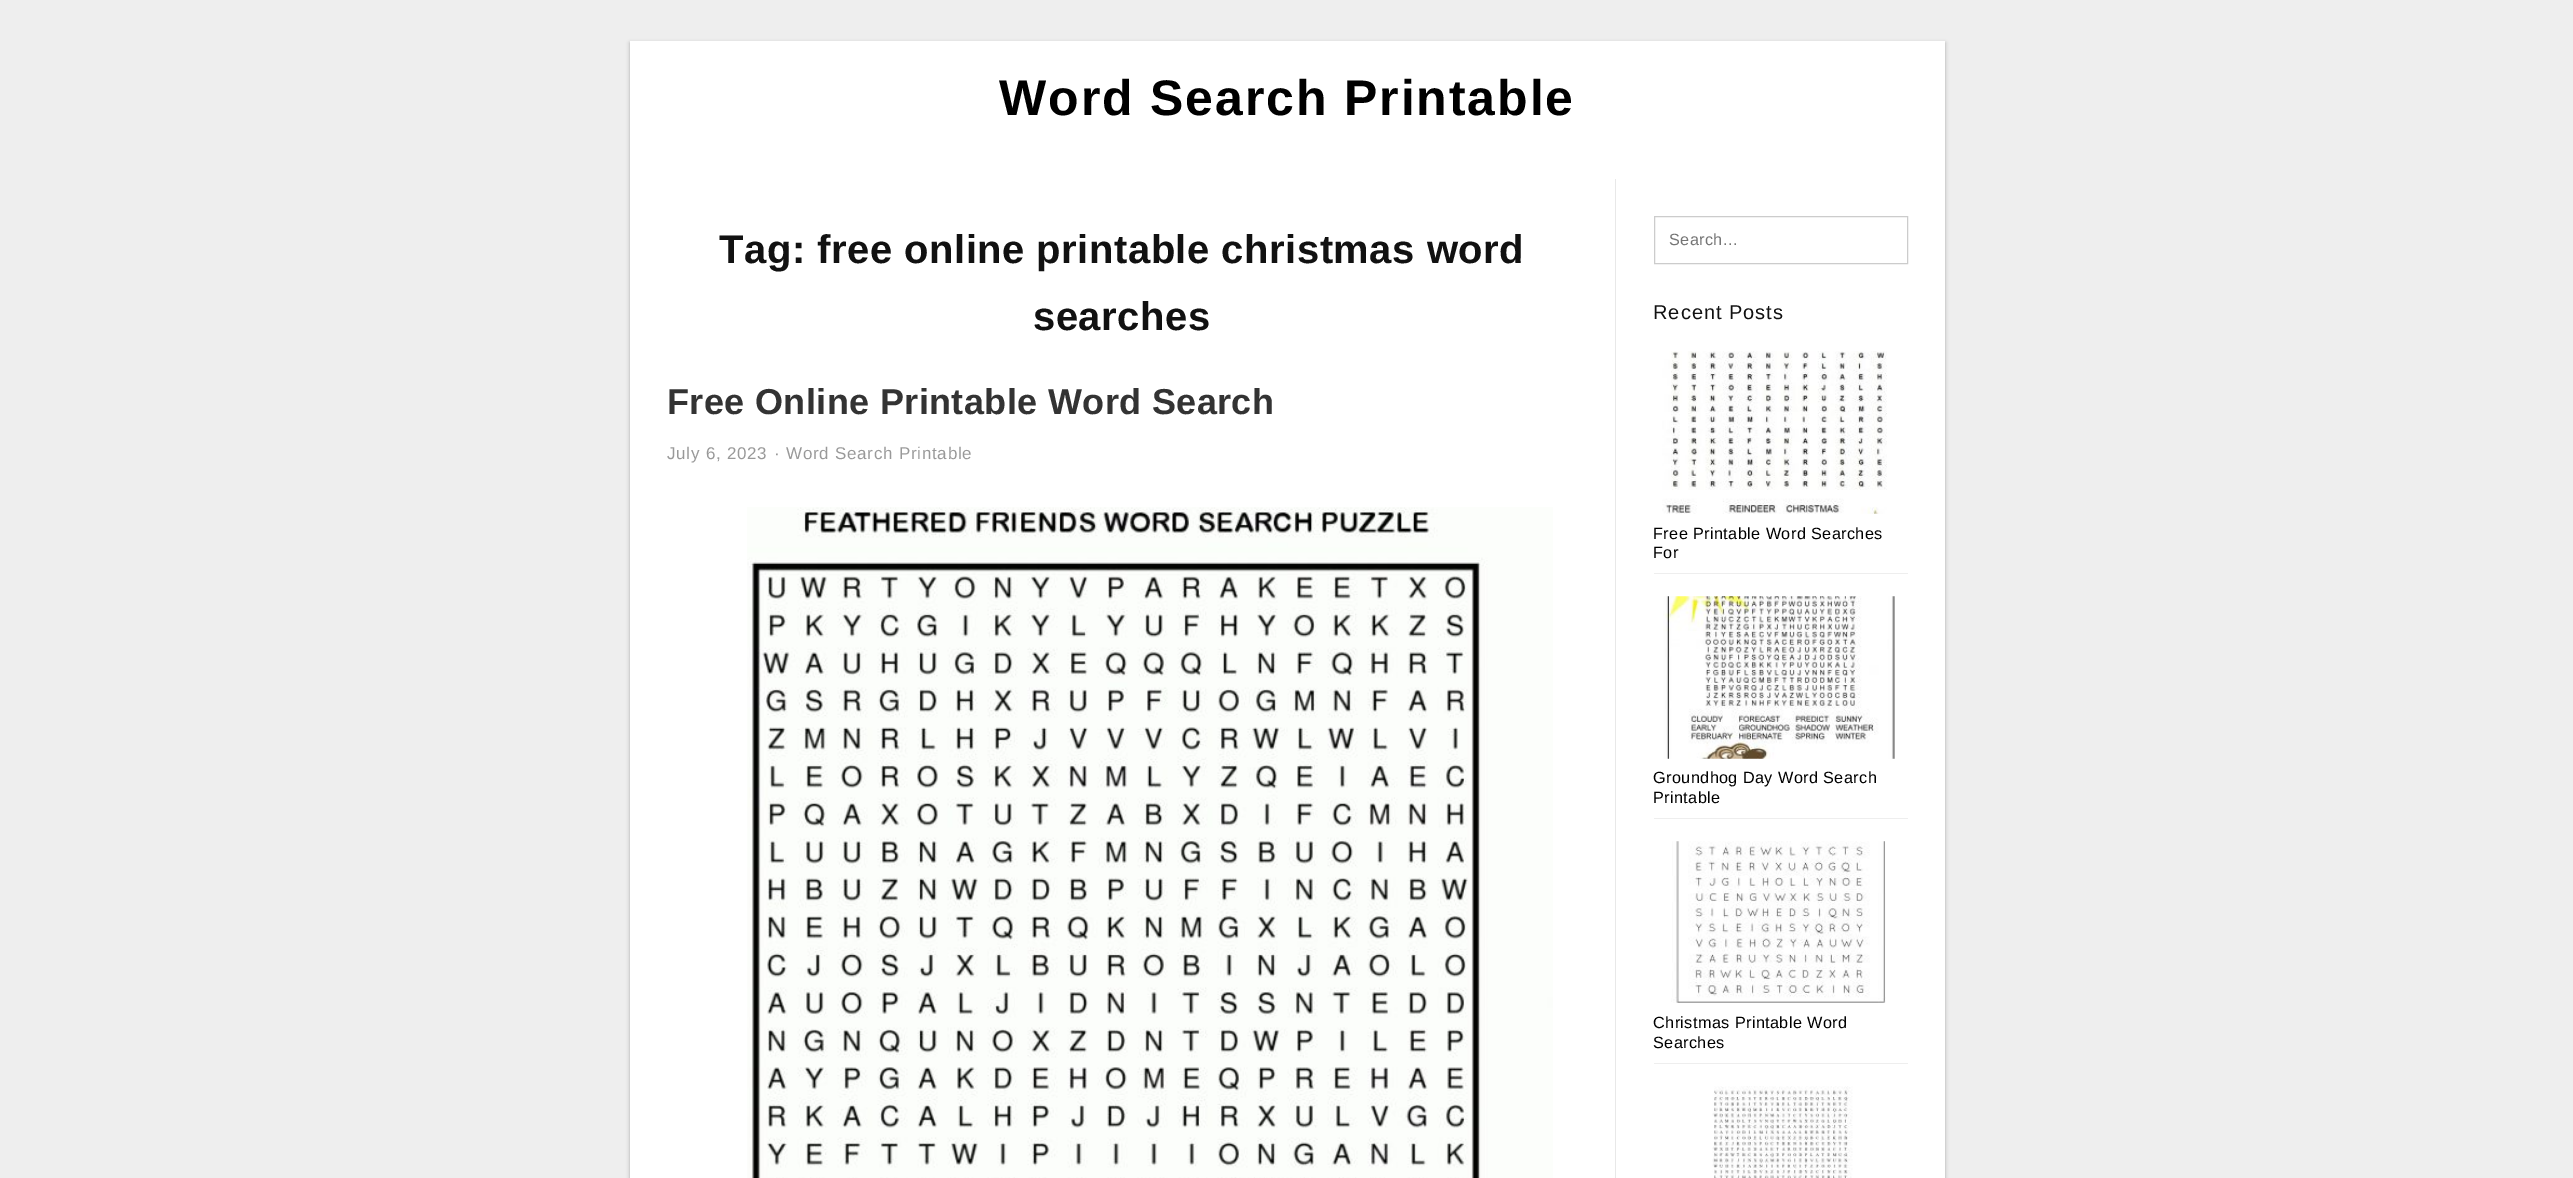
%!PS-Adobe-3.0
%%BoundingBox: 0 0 2573 1178
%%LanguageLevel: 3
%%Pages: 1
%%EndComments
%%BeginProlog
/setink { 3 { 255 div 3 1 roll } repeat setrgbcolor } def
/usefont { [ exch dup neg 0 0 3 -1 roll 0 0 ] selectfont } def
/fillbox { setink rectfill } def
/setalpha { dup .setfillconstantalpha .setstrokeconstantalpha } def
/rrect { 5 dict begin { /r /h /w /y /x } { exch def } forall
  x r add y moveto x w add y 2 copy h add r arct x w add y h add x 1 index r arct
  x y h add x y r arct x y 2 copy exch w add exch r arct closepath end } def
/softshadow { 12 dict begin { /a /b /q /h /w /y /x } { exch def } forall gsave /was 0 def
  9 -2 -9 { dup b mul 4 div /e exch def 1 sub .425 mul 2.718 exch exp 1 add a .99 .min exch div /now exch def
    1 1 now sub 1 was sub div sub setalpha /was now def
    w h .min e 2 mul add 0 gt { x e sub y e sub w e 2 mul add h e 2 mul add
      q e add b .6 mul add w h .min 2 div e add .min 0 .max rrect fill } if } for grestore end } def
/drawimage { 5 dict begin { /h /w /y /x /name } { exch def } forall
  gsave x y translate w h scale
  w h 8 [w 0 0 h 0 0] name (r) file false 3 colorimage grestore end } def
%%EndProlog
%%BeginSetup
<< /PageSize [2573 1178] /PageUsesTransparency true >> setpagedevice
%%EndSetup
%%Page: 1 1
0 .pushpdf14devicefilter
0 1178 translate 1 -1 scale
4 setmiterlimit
0 0 2573 1178 238 238 238 fillbox
0 0 0 setink
630 43 1315 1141 0 2 0.3 softshadow
630 41 1315 1137 255 255 255 fillbox
/LiberationSans-Bold 50 usefont
0 0 0 setink
999 115 moveto 1.9 0 (Word Search Printable) ashow
1615 179 1 999 232 232 232 fillbox
/LiberationSans-Bold 40 usefont
17 17 17 setink
719 263 moveto 0.5 0 (Tag: free online printable christmas word) ashow
1033 330 moveto 0.5 0 (searches) ashow
/LiberationSans-Bold 36 usefont
51 51 51 setink
667 414 moveto 0.4 0 (Free Online Printable Word Search) ashow
/LiberationSans-Regular 17 usefont
153 153 153 setink
667 459 moveto 0.75 0 (July 6, 2023) ashow
774 459 moveto 0.75 0 (· Word Search Printable) ashow
(assets/img1.rgb) 747 507 806 671 drawimage
204 204 204 setink
1654.5 216.5 253 47 rectstroke
/LiberationSans-Regular 16.25 usefont
117 117 117 setink
1669 245 moveto 0.4 0 (Search...) ashow
/LiberationSans-Regular 20 usefont
17 17 17 setink
1653 319 moveto 1 0 (Recent Posts) ashow
1654 573 254 1 238 238 238 fillbox
(assets/img2.rgb) 1662 351 225 163 drawimage
/LiberationSans-Regular 16.25 usefont
0 0 0 setink
1653 539 moveto 0.4 0 (Free Printable Word Searches) ashow
1653 558 moveto 0.4 0 (For) ashow
1654 818 254 1 238 238 238 fillbox
(assets/img3.rgb) 1663 596 232 163 drawimage
0 0 0 setink
1653 783 moveto 0.4 0 (Groundhog Day Word Search) ashow
1653 803 moveto 0.4 0 (Printable) ashow
1654 1063 254 1 238 238 238 fillbox
(assets/img4.rgb) 1671 841 215 162 drawimage
0 0 0 setink
1653 1028 moveto 0.4 0 (Christmas Printable Word) ashow
1653 1048 moveto 0.4 0 (Searches) ashow
(assets/img5.rgb) 1712 1086 141 92 drawimage
.poppdf14devicefilter showpage
%%EOF
